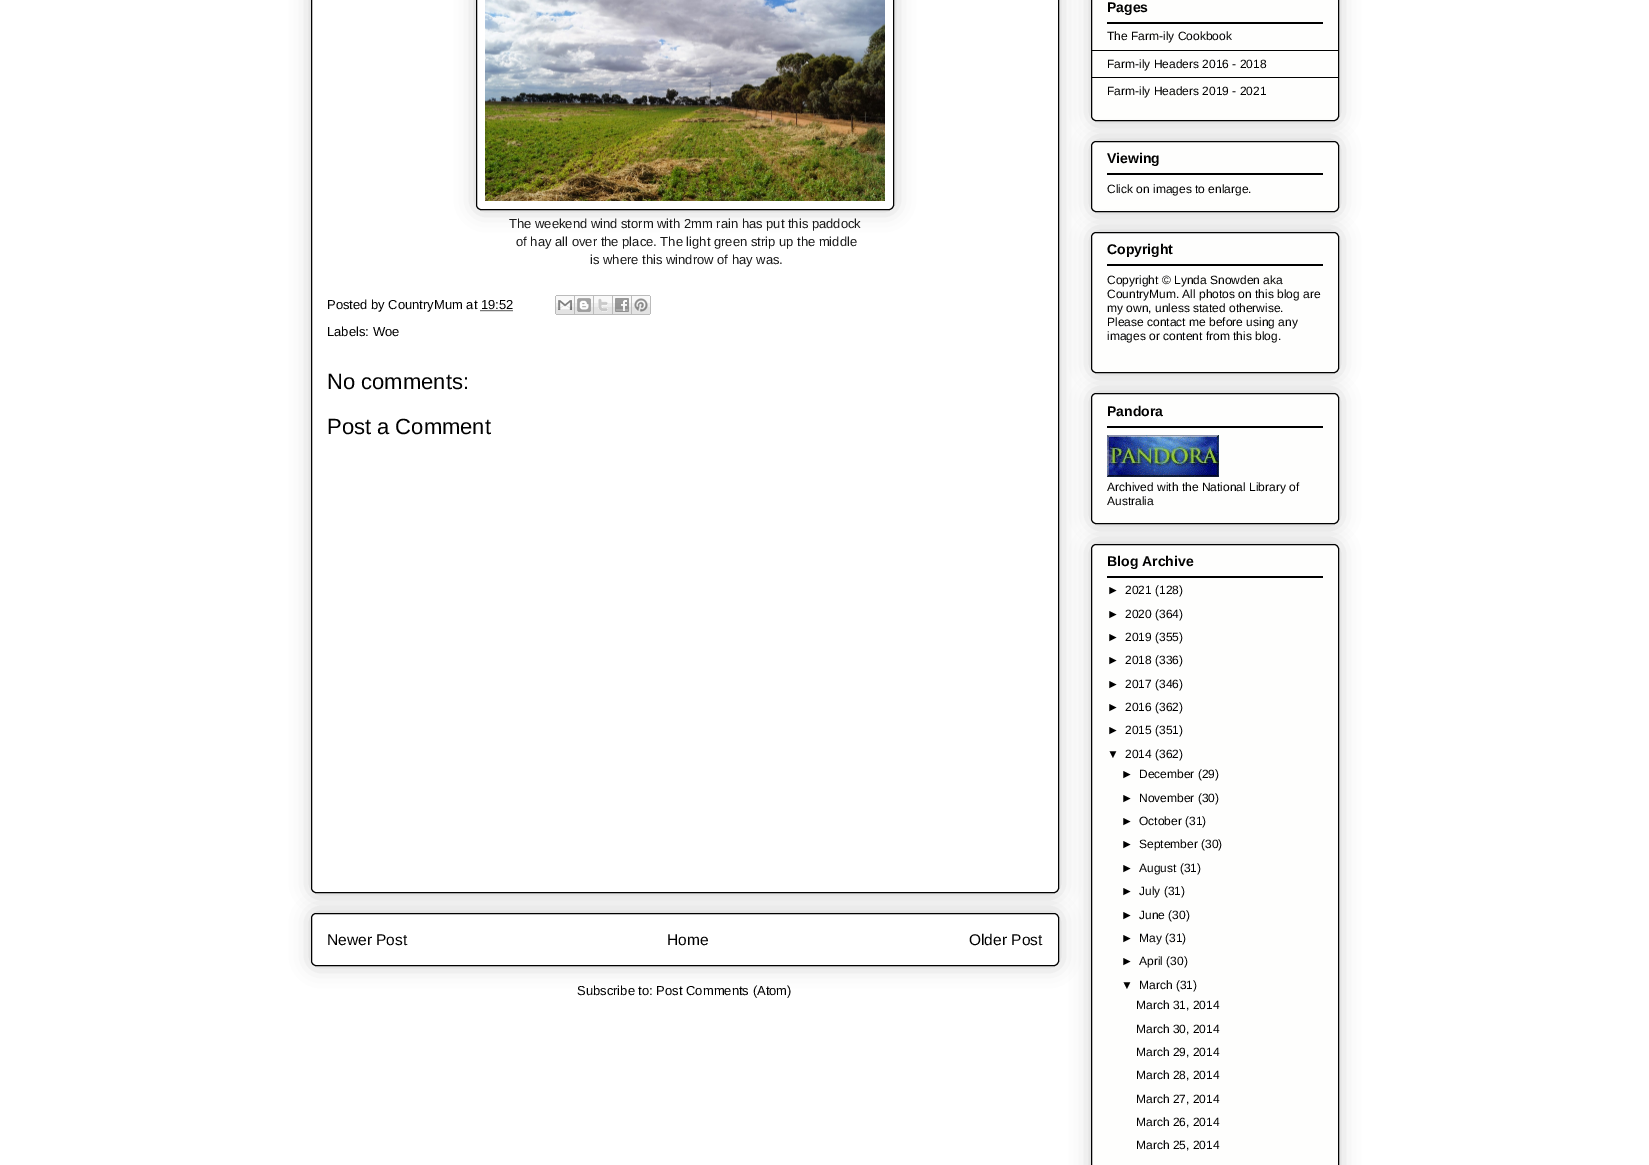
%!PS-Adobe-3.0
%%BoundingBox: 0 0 1649 1165
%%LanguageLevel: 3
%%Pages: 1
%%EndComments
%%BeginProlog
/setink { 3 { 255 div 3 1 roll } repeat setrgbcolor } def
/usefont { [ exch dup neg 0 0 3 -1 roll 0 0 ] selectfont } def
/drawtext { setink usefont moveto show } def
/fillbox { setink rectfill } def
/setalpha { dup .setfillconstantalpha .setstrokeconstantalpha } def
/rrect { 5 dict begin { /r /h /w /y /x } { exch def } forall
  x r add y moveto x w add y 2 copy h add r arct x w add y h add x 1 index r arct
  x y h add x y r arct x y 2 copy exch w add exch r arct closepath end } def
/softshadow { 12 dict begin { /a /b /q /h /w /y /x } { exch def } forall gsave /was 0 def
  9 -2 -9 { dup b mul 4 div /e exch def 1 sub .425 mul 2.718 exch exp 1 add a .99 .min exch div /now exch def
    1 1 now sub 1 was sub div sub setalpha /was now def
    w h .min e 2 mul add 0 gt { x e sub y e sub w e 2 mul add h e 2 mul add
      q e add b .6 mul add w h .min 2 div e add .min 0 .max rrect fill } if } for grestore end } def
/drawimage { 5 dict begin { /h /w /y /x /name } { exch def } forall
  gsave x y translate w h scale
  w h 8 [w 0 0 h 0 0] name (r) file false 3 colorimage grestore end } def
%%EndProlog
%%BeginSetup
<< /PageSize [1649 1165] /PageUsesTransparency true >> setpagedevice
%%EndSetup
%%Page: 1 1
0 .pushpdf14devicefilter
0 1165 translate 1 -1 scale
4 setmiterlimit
0 0 1649 1165 255 255 255 fillbox
0 0 0 setink
311 913 748 53 5 10 0.2 softshadow
255 255 255 setink
311.5 913.5 747 52 4.5 rrect gsave fill grestore
0 0 0 setink
stroke
311 -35 748 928 5 10 0.2 softshadow
255 255 255 setink
311.5 -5.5 747 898 4.5 rrect gsave fill grestore
0 0 0 setink
stroke
476 -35 418 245 5 10 0.2 softshadow
255 255 255 setink
476.5 -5.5 417 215 4.5 rrect gsave fill grestore
0 0 0 setink
stroke
(assets/img1.rgb) 485 0 400 201 drawimage
(The weekend wind storm with 2mm rain has put this paddock) 509 228 /LiberationSans-Regular 13 25 25 25 drawtext
(of hay all over the place. The light green strip up the middle) 516 246 /LiberationSans-Regular 13 25 25 25 drawtext
(is where this windrow of hay was.) 590 264 /LiberationSans-Regular 13 25 25 25 drawtext
(Posted by CountryMum at 19:52) 327 309 /LiberationSans-Regular 13 0 0 0 drawtext
(assets/img2.rgb) 555 295 20 20 drawimage
(assets/img3.rgb) 575 295 19 20 drawimage
(assets/img4.rgb) 594 295 19 20 drawimage
(assets/img5.rgb) 613 295 19 20 drawimage
(assets/img6.rgb) 632 295 19 20 drawimage
[1 1] 0 setdash
480.5 310.5 moveto 513 310.5 lineto stroke
(Labels: Woe) 327 336 /LiberationSans-Regular 13 0 0 0 drawtext
(No comments:) 327 389 /LiberationSans-Regular 22 0 0 0 drawtext
(Post a Comment) 327 434 /LiberationSans-Regular 22 0 0 0 drawtext
(Newer Post) 327 945 /LiberationSans-Regular 15.5 0 0 0 drawtext
(Home) 667 945 /LiberationSans-Regular 15.5 0 0 0 drawtext
(Older Post) 969 945 /LiberationSans-Regular 15.5 0 0 0 drawtext
(Subscribe to: Post Comments \(Atom\)) 577 995 /LiberationSans-Regular 13 0 0 0 drawtext
1091 -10 248 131 5 10 0.2 softshadow
254 254 253 setink
1091.5 -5.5 247 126 4.5 rrect gsave fill grestore
0 0 0 setink
[] 0 setdash
stroke
(Pages) 1107 12 /LiberationSans-Bold 14 0 0 0 drawtext
1107 22 216 2 0 0 0 fillbox
1092 50 246 1 0 0 0 fillbox
(The Farm-ily Cookbook) 1107 40 /LiberationSans-Regular 12 0 0 0 drawtext
1092 77 246 1 0 0 0 fillbox
(Farm-ily Headers 2016 - 2018) 1107 68 /LiberationSans-Regular 12 0 0 0 drawtext
(Farm-ily Headers 2019 - 2021) 1107 95 /LiberationSans-Regular 12 0 0 0 drawtext
1091 141 248 71 5 10 0.2 softshadow
254 254 253 setink
1091.5 141.5 247 70 4.5 rrect gsave fill grestore
0 0 0 setink
stroke
(Viewing) 1107 163 /LiberationSans-Bold 14 0 0 0 drawtext
1107 173 216 2 0 0 0 fillbox
(Click on images to enlarge.) 1107 193 /LiberationSans-Regular 12 0 0 0 drawtext
1091 232 248 141 5 10 0.2 softshadow
254 254 253 setink
1091.5 232.5 247 140 4.5 rrect gsave fill grestore
0 0 0 setink
stroke
(Copyright) 1107 254 /LiberationSans-Bold 14 0 0 0 drawtext
1107 264 216 2 0 0 0 fillbox
(Copyright © Lynda Snowden aka) 1107 284 /LiberationSans-Regular 12 0 0 0 drawtext
(CountryMum. All photos on this blog are) 1107 298 /LiberationSans-Regular 12 0 0 0 drawtext
(my own, unless stated otherwise.) 1107 312 /LiberationSans-Regular 12 0 0 0 drawtext
(Please contact me before using any) 1107 326 /LiberationSans-Regular 12 0 0 0 drawtext
(images or content from this blog.) 1107 340 /LiberationSans-Regular 12 0 0 0 drawtext
1091 393 248 131 5 10 0.2 softshadow
254 254 253 setink
1091.5 393.5 247 130 4.5 rrect gsave fill grestore
0 0 0 setink
stroke
(Pandora) 1107 416 /LiberationSans-Bold 14 0 0 0 drawtext
1107 426 216 2 0 0 0 fillbox
(assets/img7.rgb) 1107 435 112 42 drawimage
(Archived with the National Library of) 1107 491 /LiberationSans-Regular 12 0 0 0 drawtext
(Australia) 1107 505 /LiberationSans-Regular 12 0 0 0 drawtext
1091 544 248 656 5 10 0.2 softshadow
254 254 253 setink
1091.5 544.5 247 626 4.5 rrect gsave fill grestore
0 0 0 setink
stroke
(Blog Archive) 1107 566 /LiberationSans-Bold 14 0 0 0 drawtext
1107 576 216 2 0 0 0 fillbox
(►) 1107 594 /LiberationSans-Regular 12 0 0 0 drawtext
(2021 \(128\)) 1125 594 /LiberationSans-Regular 12 0 0 0 drawtext
(►) 1107 618 /LiberationSans-Regular 12 0 0 0 drawtext
(2020 \(364\)) 1125 618 /LiberationSans-Regular 12 0 0 0 drawtext
(►) 1107 641 /LiberationSans-Regular 12 0 0 0 drawtext
(2019 \(355\)) 1125 641 /LiberationSans-Regular 12 0 0 0 drawtext
(►) 1107 664 /LiberationSans-Regular 12 0 0 0 drawtext
(2018 \(336\)) 1125 664 /LiberationSans-Regular 12 0 0 0 drawtext
(►) 1107 688 /LiberationSans-Regular 12 0 0 0 drawtext
(2017 \(346\)) 1125 688 /LiberationSans-Regular 12 0 0 0 drawtext
(►) 1107 711 /LiberationSans-Regular 12 0 0 0 drawtext
(2016 \(362\)) 1125 711 /LiberationSans-Regular 12 0 0 0 drawtext
(►) 1107 734 /LiberationSans-Regular 12 0 0 0 drawtext
(2015 \(351\)) 1125 734 /LiberationSans-Regular 12 0 0 0 drawtext
(▼) 1107 758 /LiberationSans-Regular 12 0 0 0 drawtext
(2014 \(362\)) 1125 758 /LiberationSans-Regular 12 0 0 0 drawtext
(►) 1121 778 /LiberationSans-Regular 12 0 0 0 drawtext
(December \(29\)) 1139 778 /LiberationSans-Regular 12 0 0 0 drawtext
(►) 1121 802 /LiberationSans-Regular 12 0 0 0 drawtext
(November \(30\)) 1139 802 /LiberationSans-Regular 12 0 0 0 drawtext
(►) 1121 825 /LiberationSans-Regular 12 0 0 0 drawtext
(October \(31\)) 1139 825 /LiberationSans-Regular 12 0 0 0 drawtext
(►) 1121 848 /LiberationSans-Regular 12 0 0 0 drawtext
(September \(30\)) 1139 848 /LiberationSans-Regular 12 0 0 0 drawtext
(►) 1121 872 /LiberationSans-Regular 12 0 0 0 drawtext
(August \(31\)) 1139 872 /LiberationSans-Regular 12 0 0 0 drawtext
(►) 1121 895 /LiberationSans-Regular 12 0 0 0 drawtext
(July \(31\)) 1139 895 /LiberationSans-Regular 12 0 0 0 drawtext
(►) 1121 919 /LiberationSans-Regular 12 0 0 0 drawtext
(June \(30\)) 1139 919 /LiberationSans-Regular 12 0 0 0 drawtext
(►) 1121 942 /LiberationSans-Regular 12 0 0 0 drawtext
(May \(31\)) 1139 942 /LiberationSans-Regular 12 0 0 0 drawtext
(►) 1121 965 /LiberationSans-Regular 12 0 0 0 drawtext
(April \(30\)) 1139 965 /LiberationSans-Regular 12 0 0 0 drawtext
(▼) 1121 989 /LiberationSans-Regular 12 0 0 0 drawtext
(March \(31\)) 1139 989 /LiberationSans-Regular 12 0 0 0 drawtext
(March 31, 2014) 1136 1009 /LiberationSans-Regular 12 0 0 0 drawtext
(March 30, 2014) 1136 1033 /LiberationSans-Regular 12 0 0 0 drawtext
(March 29, 2014) 1136 1056 /LiberationSans-Regular 12 0 0 0 drawtext
(March 28, 2014) 1136 1079 /LiberationSans-Regular 12 0 0 0 drawtext
(March 27, 2014) 1136 1103 /LiberationSans-Regular 12 0 0 0 drawtext
(March 26, 2014) 1136 1126 /LiberationSans-Regular 12 0 0 0 drawtext
(March 25, 2014) 1136 1149 /LiberationSans-Regular 12 0 0 0 drawtext
.poppdf14devicefilter showpage
%%EOF
